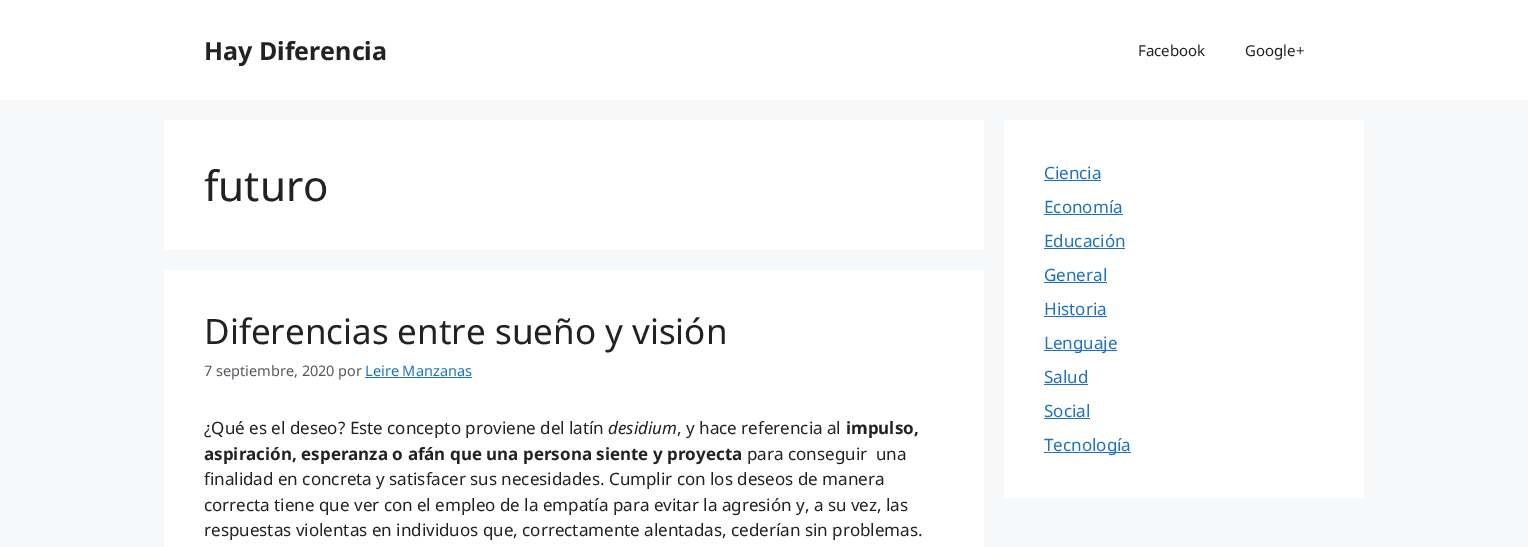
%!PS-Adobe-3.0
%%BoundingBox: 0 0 1528 547
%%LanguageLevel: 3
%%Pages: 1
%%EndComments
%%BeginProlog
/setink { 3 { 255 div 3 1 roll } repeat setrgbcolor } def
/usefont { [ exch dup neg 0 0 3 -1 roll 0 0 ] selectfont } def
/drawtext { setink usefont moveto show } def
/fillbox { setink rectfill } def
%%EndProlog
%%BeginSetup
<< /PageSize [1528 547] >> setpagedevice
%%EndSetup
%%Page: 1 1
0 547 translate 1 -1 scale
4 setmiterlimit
0 0 1528 547 247 248 249 fillbox
0 0 1528 100 255 255 255 fillbox
(Hay Diferencia) 204 60 /NotoSans-Bold 25 34 34 34 drawtext
(Facebook) 1138 56 /NotoSans-Regular 15 34 34 34 drawtext
(Google+) 1245 56 /NotoSans-Regular 15 34 34 34 drawtext
164 120 820 130 255 255 255 fillbox
(futuro) 204 201 /NotoSans-Regular 42 34 34 34 drawtext
164 270 820 277 255 255 255 fillbox
(Diferencias entre sueño y visión) 204 344 /NotoSans-Regular 35 34 34 34 drawtext
(7 septiembre, 2020 por) 204 376 /NotoSans-Regular 14.5 87 87 96 drawtext
(Leire Manzanas) 365 376 /NotoSans-Regular 14.5 30 115 190 drawtext
365 377 107 1 30 115 190 fillbox
(¿Qué es el deseo? Este concepto proviene del latín) 204 434 /NotoSans-Regular 17 34 34 34 drawtext
(desidium) 608 434 /NotoSans-Italic 17 34 34 34 drawtext
(, y hace referencia al) 677 434 /NotoSans-Regular 17 34 34 34 drawtext
(impulso,) 846 434 /NotoSans-Bold 17 34 34 34 drawtext
(aspiración, esperanza o afán que una persona siente y proyecta) 204 460 /NotoSans-Bold 17 34 34 34 drawtext
(para conseguir  una) 747 460 /NotoSans-Regular 17 34 34 34 drawtext
(finalidad en concreta y satisfacer sus necesidades. Cumplir con los deseos de manera) 204 485 /NotoSans-Regular 17 34 34 34 drawtext
(correcta tiene que ver con el empleo de la empatía para evitar la agresión y, a su vez, las) 204 511 /NotoSans-Regular 17 34 34 34 drawtext
(respuestas violentas en individuos que, correctamente alentadas, cederían sin problemas.) 204 536 /NotoSans-Regular 17 34 34 34 drawtext
1004 120 360 378 255 255 255 fillbox
(Ciencia) 1044 179 /NotoSans-Regular 17 30 115 190 drawtext
1044 180 57 1 30 115 190 fillbox
(Economía) 1044 213 /NotoSans-Regular 17 30 115 190 drawtext
1044 214 79 1 30 115 190 fillbox
(Educación) 1044 247 /NotoSans-Regular 17 30 115 190 drawtext
1044 248 81 1 30 115 190 fillbox
(General) 1044 281 /NotoSans-Regular 17 30 115 190 drawtext
1044 282 63 1 30 115 190 fillbox
(Historia) 1044 315 /NotoSans-Regular 17 30 115 190 drawtext
1044 316 63 1 30 115 190 fillbox
1044 350 73 1 30 115 190 fillbox
(Lenguaje) 1044 349 /NotoSans-Regular 17 30 115 190 drawtext
(Salud) 1044 383 /NotoSans-Regular 17 30 115 190 drawtext
1044 384 44 1 30 115 190 fillbox
(Social) 1044 417 /NotoSans-Regular 17 30 115 190 drawtext
1044 418 46 1 30 115 190 fillbox
1044 452 87 1 30 115 190 fillbox
(Tecnología) 1044 451 /NotoSans-Regular 17 30 115 190 drawtext
showpage
%%EOF
